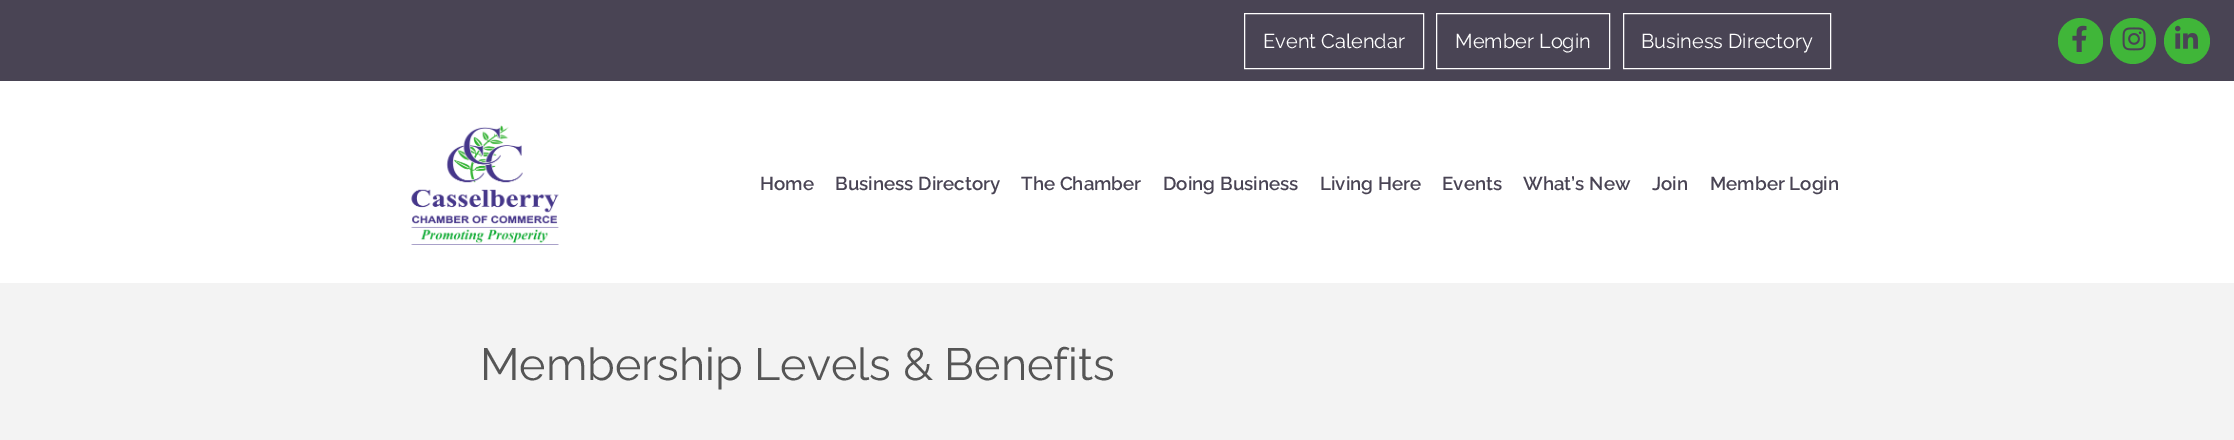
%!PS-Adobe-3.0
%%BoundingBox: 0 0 2234 440
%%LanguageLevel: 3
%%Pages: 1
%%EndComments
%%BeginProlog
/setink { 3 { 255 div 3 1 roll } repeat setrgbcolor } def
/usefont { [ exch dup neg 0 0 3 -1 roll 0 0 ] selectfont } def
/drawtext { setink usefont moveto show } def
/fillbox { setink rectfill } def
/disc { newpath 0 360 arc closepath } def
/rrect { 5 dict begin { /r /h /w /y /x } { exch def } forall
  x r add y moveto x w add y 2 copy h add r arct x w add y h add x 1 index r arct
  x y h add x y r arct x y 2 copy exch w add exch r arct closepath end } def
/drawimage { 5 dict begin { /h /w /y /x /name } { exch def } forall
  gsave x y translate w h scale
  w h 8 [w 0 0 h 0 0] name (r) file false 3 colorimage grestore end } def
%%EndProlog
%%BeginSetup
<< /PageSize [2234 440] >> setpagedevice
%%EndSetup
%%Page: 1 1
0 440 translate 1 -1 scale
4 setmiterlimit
0 0 2234 440 255 255 255 fillbox
0 0 2234 81 73 68 84 fillbox
255 255 255 setink
1244.5 13.5 179 55 rectstroke
(Event Calendar) 1263 48 /Raleway-Regular 20 255 255 255 drawtext
1436.5 13.5 173 55 rectstroke
(Member Login) 1455 48 /Raleway-Regular 20 255 255 255 drawtext
1623.5 13.5 207 55 rectstroke
(Business Directory) 1641 48 /Raleway-Regular 20 255 255 255 drawtext
64 182 57 setink
2058 18 45 46 22.5 rrect fill
(assets/img1.rgb) 2072 25 15 27 drawimage
2133 41 23 disc fill
(assets/img2.rgb) 2122 27 24 24 drawimage
2187 41 23 disc fill
(assets/img3.rgb) 2175 25 23 24 drawimage
(assets/img4.rgb) 411 125 148 120 drawimage
(Home) 760 190 /Raleway-SemiBold 18.75 73 68 84 drawtext
(Business Directory) 835 190 /Raleway-SemiBold 18.75 73 68 84 drawtext
(The Chamber) 1021 190 /Raleway-SemiBold 18.75 73 68 84 drawtext
(Doing Business) 1163 190 /Raleway-SemiBold 18.75 73 68 84 drawtext
(Living Here) 1320 190 /Raleway-SemiBold 18.75 73 68 84 drawtext
(Events) 1442 190 /Raleway-SemiBold 18.75 73 68 84 drawtext
(What’s New) 1523 190 /Raleway-SemiBold 18.75 73 68 84 drawtext
(Join) 1652 190 /Raleway-SemiBold 18.75 73 68 84 drawtext
(Member Login) 1710 190 /Raleway-SemiBold 18.75 73 68 84 drawtext
0 283 2234 157 243 243 243 fillbox
(Membership Levels & Benefits) 480 380 /Raleway-Regular 45 85 85 85 drawtext
showpage
%%EOF
